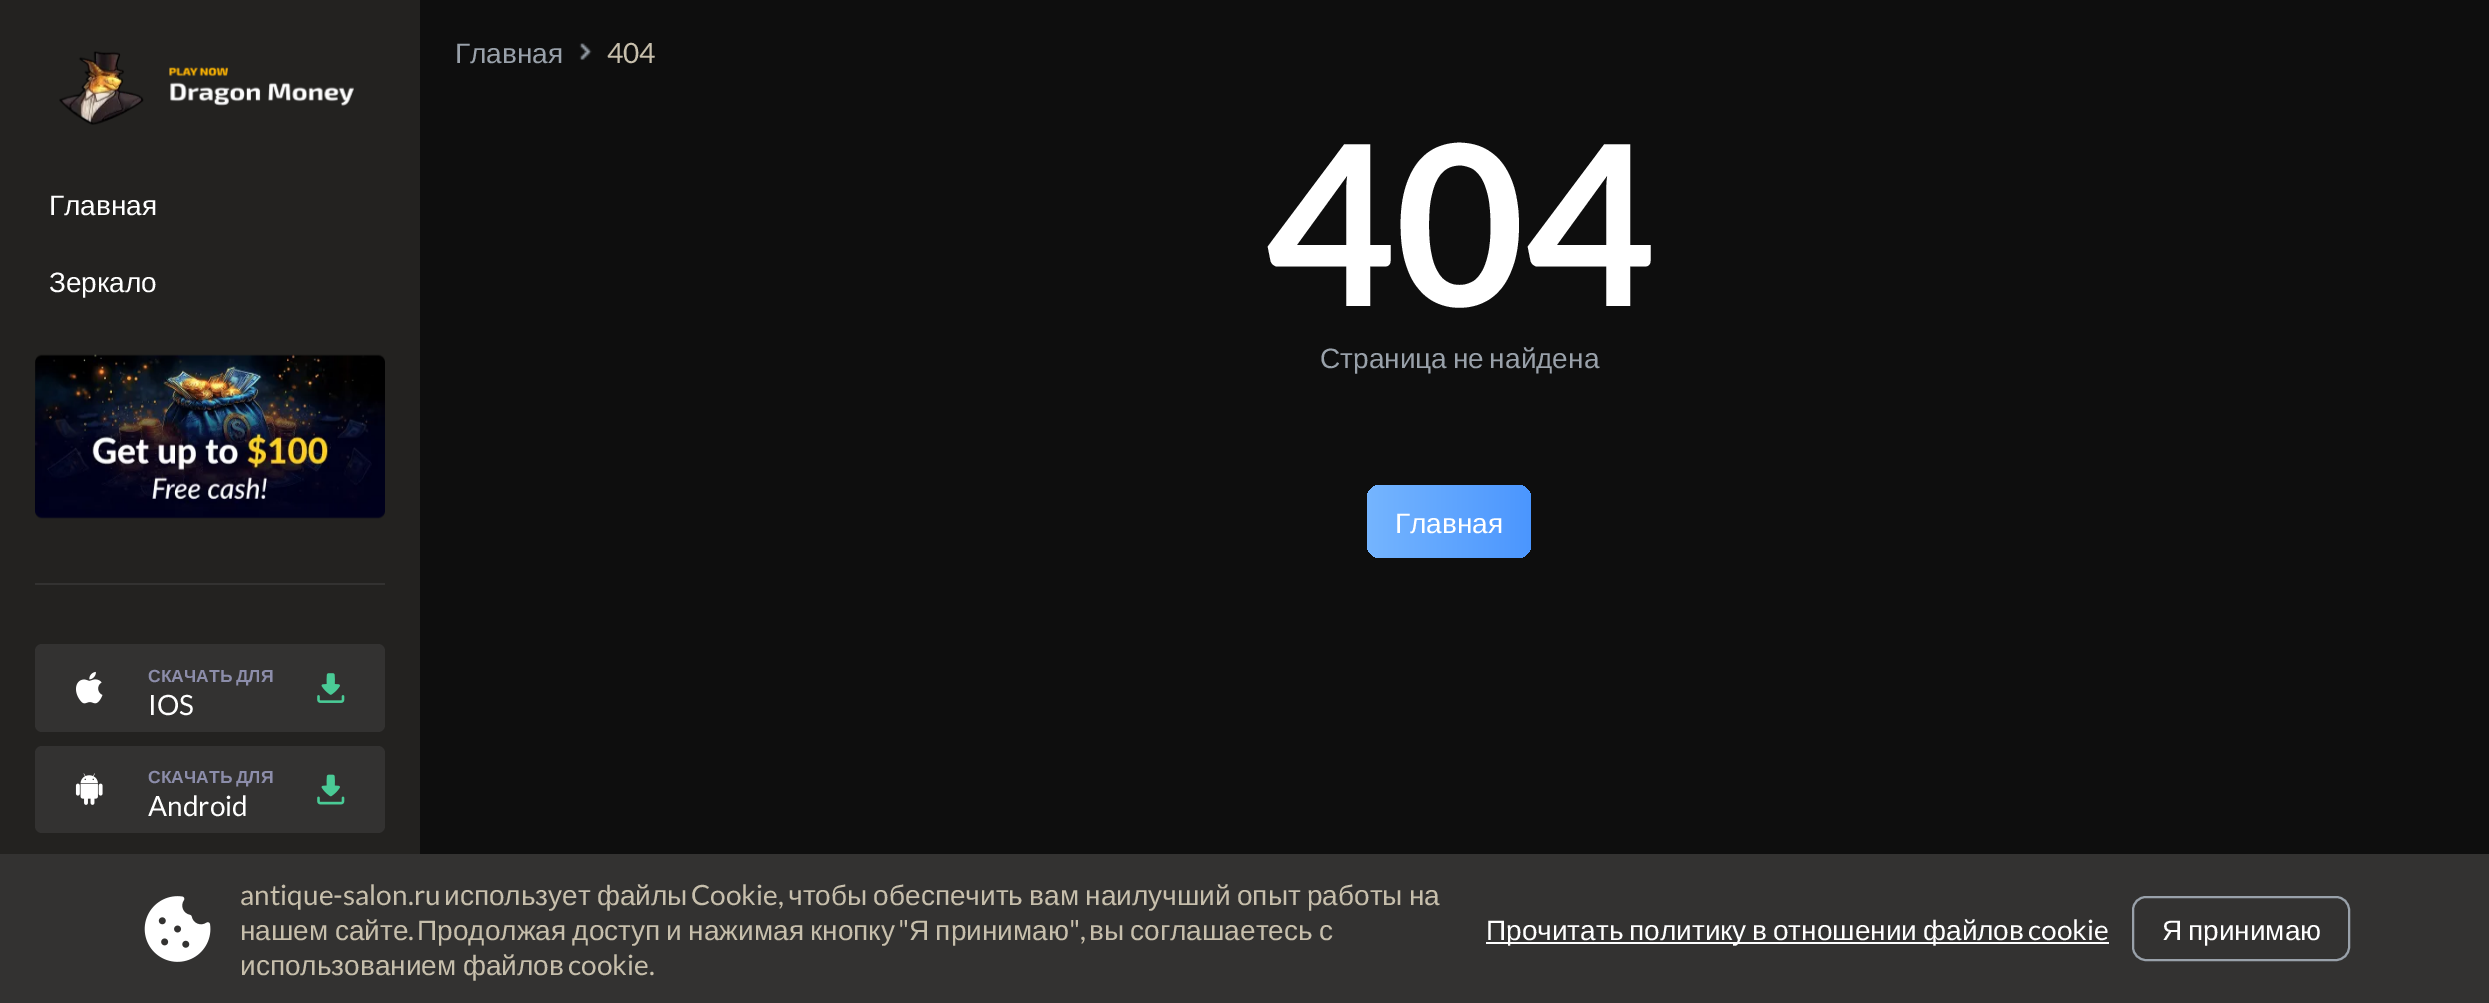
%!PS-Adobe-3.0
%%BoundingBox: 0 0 2489 1003
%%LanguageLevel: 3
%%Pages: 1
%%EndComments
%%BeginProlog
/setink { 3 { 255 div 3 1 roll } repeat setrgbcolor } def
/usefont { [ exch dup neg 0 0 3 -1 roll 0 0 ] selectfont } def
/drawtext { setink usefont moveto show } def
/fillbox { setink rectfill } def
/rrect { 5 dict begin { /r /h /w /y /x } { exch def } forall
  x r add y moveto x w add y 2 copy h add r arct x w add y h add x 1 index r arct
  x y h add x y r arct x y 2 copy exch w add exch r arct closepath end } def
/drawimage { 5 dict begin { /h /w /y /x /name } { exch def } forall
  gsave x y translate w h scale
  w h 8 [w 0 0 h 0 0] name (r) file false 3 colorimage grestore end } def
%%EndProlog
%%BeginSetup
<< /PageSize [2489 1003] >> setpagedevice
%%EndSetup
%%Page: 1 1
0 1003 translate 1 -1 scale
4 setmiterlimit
0 0 2489 1003 14 14 14 fillbox
0 0 420 854 35 34 32 fillbox
(assets/img1.rgb) 59 51 295 74 drawimage
(Главная) 49 215 /LiberationSans-Regular 28 255 255 255 drawtext
(Зеркало) 49 292 /LiberationSans-Regular 28 255 255 255 drawtext
(assets/img2.rgb) 35 354 350 165 drawimage
35 583 350 2 51 50 49 fillbox
35 644 350 88 7 rrect fill
(assets/img3.rgb) 76 671 27 33 drawimage
/LiberationSans-Bold 17.5 usefont
140 141 170 setink
148 682 moveto -1 0 32 (СКАЧАТЬ ДЛЯ) widthshow
(IOS) 148 715 /Lato-Regular 28 255 255 255 drawtext
(assets/img4.rgb) 317 673 28 30 drawimage
51 50 49 setink
35 746 350 87 7 rrect fill
(assets/img5.rgb) 75 773 28 32 drawimage
/LiberationSans-Bold 17.5 usefont
140 141 170 setink
148 783 moveto -1 0 32 (СКАЧАТЬ ДЛЯ) widthshow
(Android) 148 816 /Lato-Regular 28 255 255 255 drawtext
(assets/img6.rgb) 317 774 28 31 drawimage
(Главная) 455 63 /LiberationSans-Regular 28 153 161 170 drawtext
(assets/img7.rgb) 579 43 13 17 drawimage
(404) 607 63 /Lato-Regular 28 199 191 172 drawtext
(404) 1265 306 /Lato-Bold 224 255 255 255 drawtext
/LiberationSans-Regular 28 usefont
153 161 170 setink
1320 368 moveto -2 0 32 (Страница не найдена) widthshow
gsave 1367 485 164 73 14 rrect clip newpath
<< /ShadingType 2 /ColorSpace /DeviceRGB /Coords [1367 522 1531 522] /Extend [true true] /Function << /FunctionType 2 /Domain [0 1] /C0 [0.459 0.71 1] /C1 [0.294 0.588 0.996] /N 1 >> >> shfill grestore
(Главная) 1395 533 /LiberationSans-Regular 28 255 255 255 drawtext
0 854 2489 149 51 50 49 fillbox
(assets/img8.rgb) 144 896 67 66 drawimage
(antique-salon.ru) 240 905 /Lato-Regular 28 199 191 172 drawtext
/LiberationSans-Regular 28 usefont
444 905 moveto -1.5 0 32 (использует файлы) widthshow
(Cookie,) 691 905 /Lato-Regular 28 199 191 172 drawtext
/LiberationSans-Regular 28 usefont
788 905 moveto -1.5 0 32 (чтобы обеспечить вам наилучший опыт работы на) widthshow
240 940 moveto -1.5 0 32 (нашем сайте) widthshow
(.) 408 940 /Lato-Regular 28 199 191 172 drawtext
/LiberationSans-Regular 28 usefont
417 940 moveto -1.5 0 32 (Продолжая доступ и нажимая кнопку) widthshow
(") 898 940 /Lato-Regular 28 199 191 172 drawtext
/LiberationSans-Regular 28 usefont
909 940 moveto -1.5 0 32 (Я принимаю) widthshow
(",) 1069 940 /Lato-Regular 28 199 191 172 drawtext
/LiberationSans-Regular 28 usefont
1089 940 moveto -1.5 0 32 (вы соглашаетесь с) widthshow
240 975 moveto -1 0 32 (использованием файлов) widthshow
(cookie.) 568 975 /Lato-Regular 28 199 191 172 drawtext
1486 942 623 2 255 255 255 fillbox
/LiberationSans-Regular 28 usefont
1486 940 moveto -2 0 32 (Прочитать политику в отношении файлов) widthshow
(cookie) 2028 940 /Lato-Regular 28 255 255 255 drawtext
153 161 170 setink
2 setlinewidth
2133 897 216 63 13 rrect stroke
/LiberationSans-Regular 28 usefont
255 255 255 setink
2162 940 moveto -2 0 32 (Я принимаю) widthshow
showpage
%%EOF
